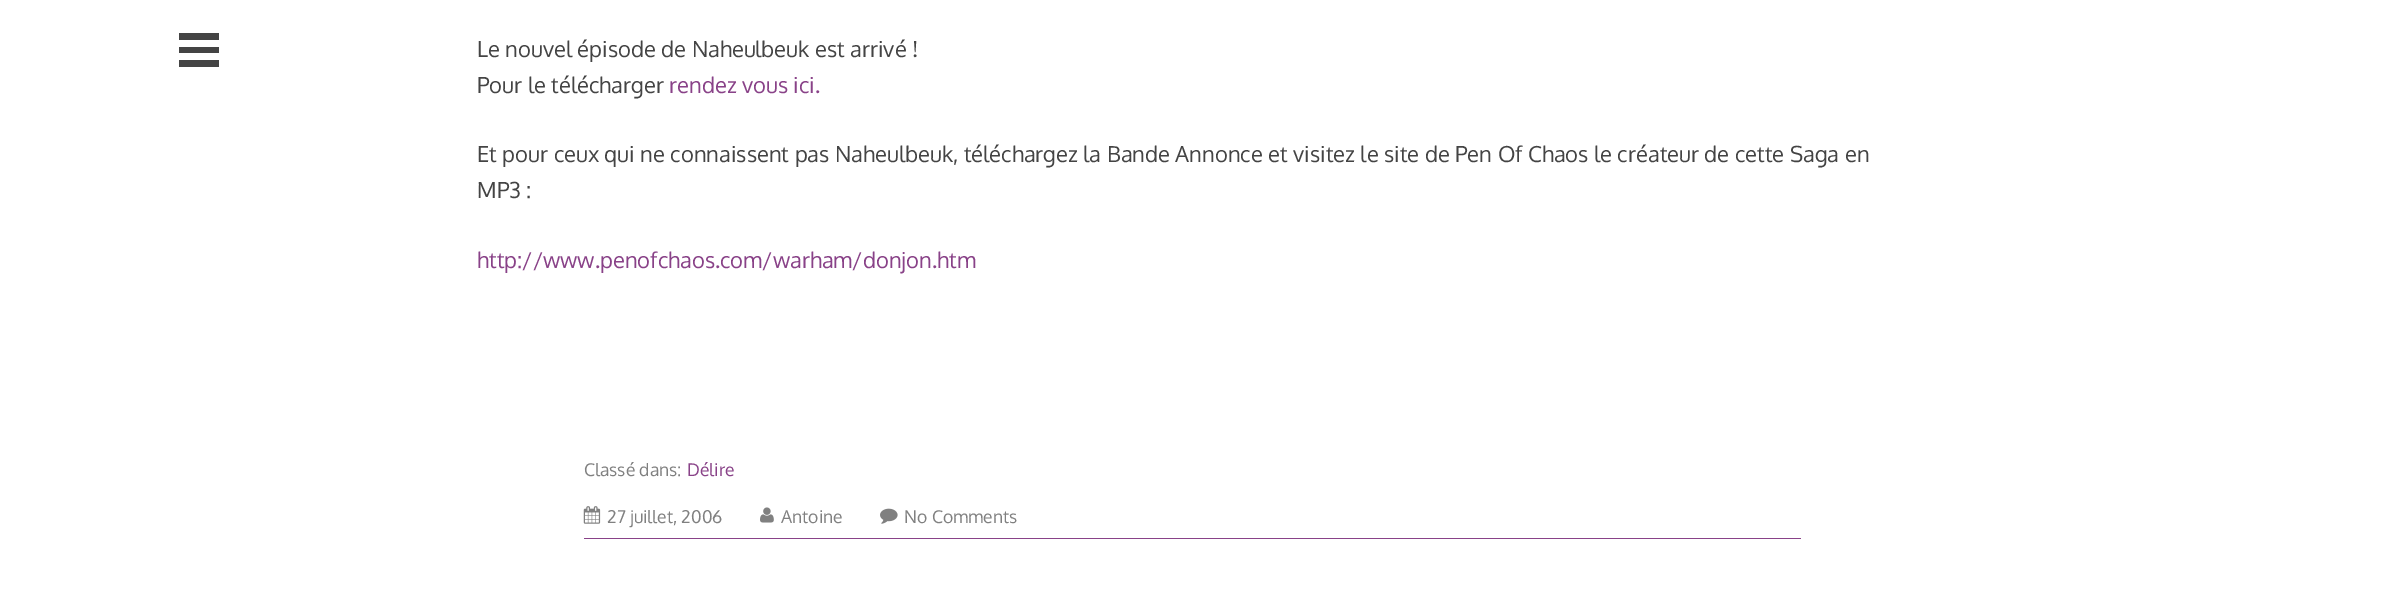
%!PS-Adobe-3.0
%%BoundingBox: 0 0 2384 603
%%LanguageLevel: 3
%%Pages: 1
%%EndComments
%%BeginProlog
/setink { 3 { 255 div 3 1 roll } repeat setrgbcolor } def
/usefont { [ exch dup neg 0 0 3 -1 roll 0 0 ] selectfont } def
/drawtext { setink usefont moveto show } def
/fillbox { setink rectfill } def
/drawimage { 5 dict begin { /h /w /y /x /name } { exch def } forall
  gsave x y translate w h scale
  w h 8 [w 0 0 h 0 0] name (r) file false 3 colorimage grestore end } def
%%EndProlog
%%BeginSetup
<< /PageSize [2384 603] >> setpagedevice
%%EndSetup
%%Page: 1 1
0 603 translate 1 -1 scale
4 setmiterlimit
0 0 2384 603 255 255 255 fillbox
179 33 40 7 68 68 68 fillbox
179 47 40 6 68 68 68 fillbox
179 60 40 7 68 68 68 fillbox
(Le nouvel épisode de Naheulbeuk est arrivé !) 477 57 /Oxygen-Regular 22 68 68 68 drawtext
(Pour le télécharger) 477 93 /Oxygen-Regular 22 68 68 68 drawtext
(rendez vous ici.) 669 93 /Oxygen-Regular 22 137 66 136 drawtext
(Et pour ceux qui ne connaissent pas Naheulbeuk, téléchargez la Bande Annonce et visitez le site de Pen Of Chaos le créateur de cette Saga en) 477 162 /Oxygen-Regular 22 68 68 68 drawtext
(MP3 :) 477 198 /Oxygen-Regular 22 68 68 68 drawtext
(http://www.penofchaos.com/warham/donjon.htm) 477 268 /Oxygen-Regular 22 137 66 136 drawtext
584 538 1217 1 137 66 136 fillbox
(Classé dans:) 584 476 /Oxygen-Regular 17.5 128 128 128 drawtext
(Délire) 687 476 /Oxygen-Regular 17.5 137 66 136 drawtext
(assets/img1.rgb) 583 506 18 18 drawimage
(27 juillet, 2006) 607 523 /Oxygen-Regular 17.5 128 128 128 drawtext
(assets/img2.rgb) 760 507 14 16 drawimage
(Antoine) 781 523 /Oxygen-Regular 17.5 128 128 128 drawtext
(assets/img3.rgb) 880 508 18 16 drawimage
(No Comments) 904 523 /Oxygen-Regular 17.5 128 128 128 drawtext
showpage
%%EOF
